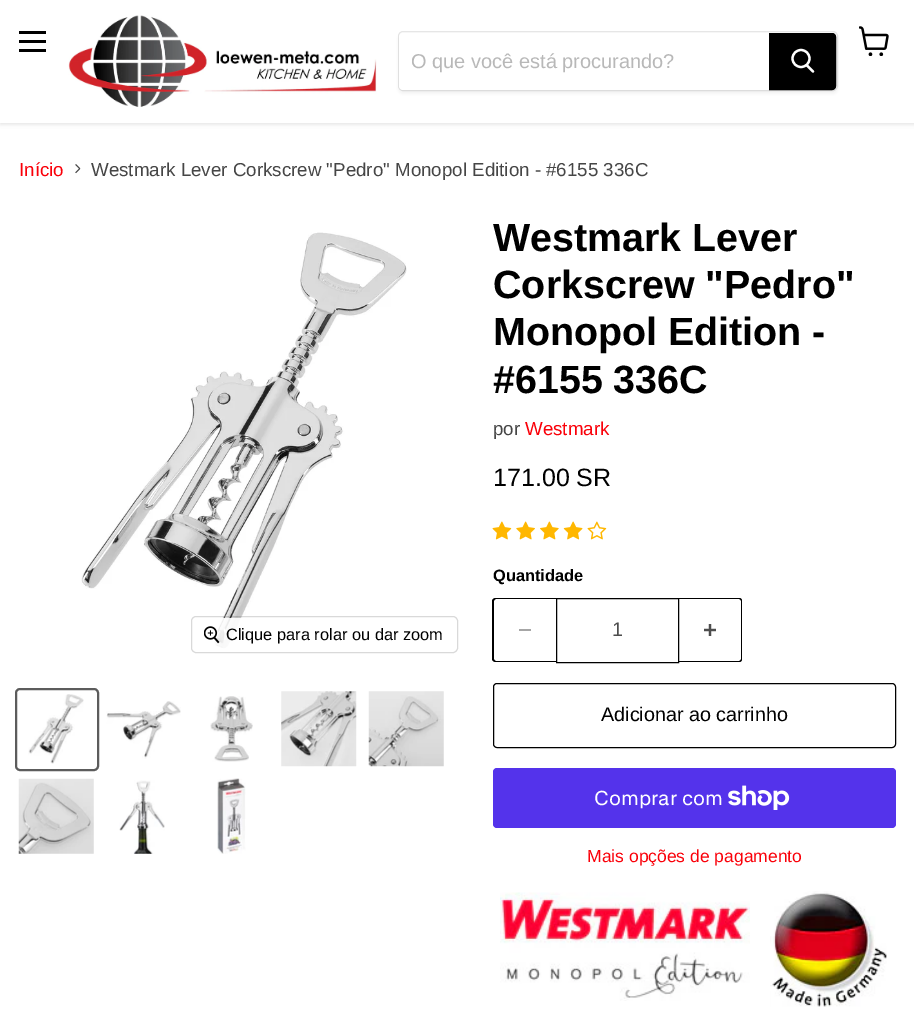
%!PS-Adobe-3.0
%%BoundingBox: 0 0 914 1030
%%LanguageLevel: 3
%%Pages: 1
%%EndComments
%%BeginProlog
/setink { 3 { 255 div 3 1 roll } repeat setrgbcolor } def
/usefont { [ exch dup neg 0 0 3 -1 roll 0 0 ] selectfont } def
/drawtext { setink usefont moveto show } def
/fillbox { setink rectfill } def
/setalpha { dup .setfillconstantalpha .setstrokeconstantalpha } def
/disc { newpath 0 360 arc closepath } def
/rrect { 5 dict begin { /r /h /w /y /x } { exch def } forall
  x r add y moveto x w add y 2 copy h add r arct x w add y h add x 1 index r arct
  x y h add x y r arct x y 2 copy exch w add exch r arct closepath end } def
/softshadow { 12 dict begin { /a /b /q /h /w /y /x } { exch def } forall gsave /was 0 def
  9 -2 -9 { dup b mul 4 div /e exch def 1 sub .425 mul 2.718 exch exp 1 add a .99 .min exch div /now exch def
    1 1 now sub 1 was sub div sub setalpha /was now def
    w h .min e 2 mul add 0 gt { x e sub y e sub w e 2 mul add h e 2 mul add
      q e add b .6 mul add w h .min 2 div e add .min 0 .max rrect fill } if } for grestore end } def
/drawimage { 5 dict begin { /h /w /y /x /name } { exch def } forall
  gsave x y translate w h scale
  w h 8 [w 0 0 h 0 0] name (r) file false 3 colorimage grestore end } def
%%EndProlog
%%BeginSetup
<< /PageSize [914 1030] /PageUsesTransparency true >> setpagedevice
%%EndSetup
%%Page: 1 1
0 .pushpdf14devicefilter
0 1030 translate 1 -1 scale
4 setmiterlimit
0 0 914 1030 255 255 255 fillbox
128 128 128 setink
0 1 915 123 0 2.5 0.25 softshadow
0 0 914 123 255 255 255 fillbox
19 31 27 3 0 0 0 fillbox
19 40 27 3 0 0 0 fillbox
19 49 27 3 0 0 0 fillbox
(assets/img1.rgb) 859 26 30 30 drawimage
(assets/img2.rgb) 68 15 309 92 drawimage
128 128 128 setink
398 34 440 60 5 2 0.11 softshadow
0.2 setalpha
398.5 31.5 439 59 4.5 rrect stroke
1 setalpha
255 255 255 setink
403 33 moveto 769 33 lineto 769 90 lineto 403 90 lineto 401 90 399 88 399 86 curveto 399 37 lineto 399 35 401 33 403 33 curveto closepath fill
(O que você está procurando?) 411 68 /LiberationSans-Regular 20 184 184 184 drawtext
0 0 0 setink
769.5 33.5 moveto 832 33.5 lineto 834 33.5 835.5 35 835.5 37 curveto 835.5 86 lineto 835.5 88 834 89.5 832 89.5 curveto 769.5 89.5 lineto closepath gsave fill grestore
stroke
255 255 255 setink
2.2 setlinewidth
1 setlinecap
813 71.5 moveto 807 65.5 lineto stroke
0 setlinecap
801 58.5 8.5 disc stroke
(Início) 19 176 /LiberationSans-Regular 18.75 250 0 9 drawtext
(assets/img3.rgb) 75 164 6 10 drawimage
(Westmark Lever Corkscrew "Pedro" Monopol Edition - #6155 336C) 91 176 /LiberationSans-Regular 18.75 70 70 70 drawtext
(assets/img4.rgb) 81 232 326 417 drawimage
0.15 setalpha
0 0 0 setink
1 setlinewidth
191.5 616.5 266 36 4.5 rrect stroke
0.9 setalpha
255 255 255 setink
193 618 263 33 4 rrect fill
1 setalpha
(assets/img5.rgb) 204 626 16 18 drawimage
(Clique para rolar ou dar zoom) 226 640 /LiberationSans-Regular 16.4 0 0 0 drawtext
92 92 92 setink
2 setlinewidth
16 689 82 81 4 rrect stroke
(assets/img6.rgb) 28 694 56 70 drawimage
(assets/img7.rgb) 106 701 75 58 drawimage
(assets/img8.rgb) 210 696 43 66 drawimage
(assets/img9.rgb) 281 691 76 76 drawimage
(assets/img10.rgb) 368 691 76 76 drawimage
(assets/img11.rgb) 18 778 76 76 drawimage
(assets/img12.rgb) 119 780 46 74 drawimage
(assets/img13.rgb) 217 778 29 76 drawimage
(Westmark Lever) 493 251 /LiberationSans-Bold 39.4 0 0 0 drawtext
(Corkscrew "Pedro") 493 298 /LiberationSans-Bold 39.4 0 0 0 drawtext
(Monopol Edition -) 493 345 /LiberationSans-Bold 39.4 0 0 0 drawtext
(#6155 336C) 493 393 /LiberationSans-Bold 39.4 0 0 0 drawtext
(por) 493 435 /LiberationSans-Regular 18.75 70 70 70 drawtext
(Westmark) 525 435 /LiberationSans-Regular 18.75 250 0 9 drawtext
(171.00 SR) 493 486 /LiberationSans-Regular 25 0 0 0 drawtext
(assets/img14.rgb) 492 521 20 19 drawimage
(assets/img15.rgb) 516 521 19 19 drawimage
(assets/img16.rgb) 540 521 19 19 drawimage
(assets/img17.rgb) 563 521 20 19 drawimage
(assets/img18.rgb) 587 521 20 19 drawimage
(Quantidade) 493 581 /LiberationSans-Bold 16.4 0 0 0 drawtext
496 598 moveto 556 598 lineto 556 662 lineto 496 662 lineto 494 662 492 661 492 659 curveto 492 601 lineto 492 599 494 598 496 598 curveto closepath 496 599 moveto 556 599 lineto 556 661 lineto 496 661 lineto 495 661 494 660 494 659 curveto 494 601 lineto 494 600 495 599 496 599 curveto closepath eofill
519 629 12 2 166 166 166 fillbox
0 0 0 setink
1 setlinewidth
556.5 598.5 122 64 rectstroke
(1) 612 636 /LiberationSans-Regular 19.75 77 77 77 drawtext
0 0 0 setink
679 598 moveto 739 598 lineto 741 598 742 599 742 601 curveto 742 659 lineto 742 661 741 662 739 662 curveto 679 662 lineto closepath 679 599 moveto 739 599 lineto 740 599 741 600 741 601 curveto 741 659 lineto 741 660 740 661 739 661 curveto 679 661 lineto closepath eofill
(assets/img19.rgb) 704 624 12 12 drawimage
493.5 683.5 402 64 3.5 rrect stroke
(Adicionar ao carrinho) 601 721 /LiberationSans-Regular 19.75 0 0 0 drawtext
84 51 235 setink
493 768 403 60 4 rrect fill
(Comprar com) 594 805 /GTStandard-Regular 20 255 255 255 drawtext
(assets/img20.rgb) 728 785 62 25 drawimage
(Mais opções de pagamento) 587 862 /LiberationSans-Regular 17.5 250 0 9 drawtext
(assets/img21.rgb) 500 892 250 109 drawimage
(assets/img22.rgb) 770 891 117 116 drawimage
.poppdf14devicefilter showpage
%%EOF
